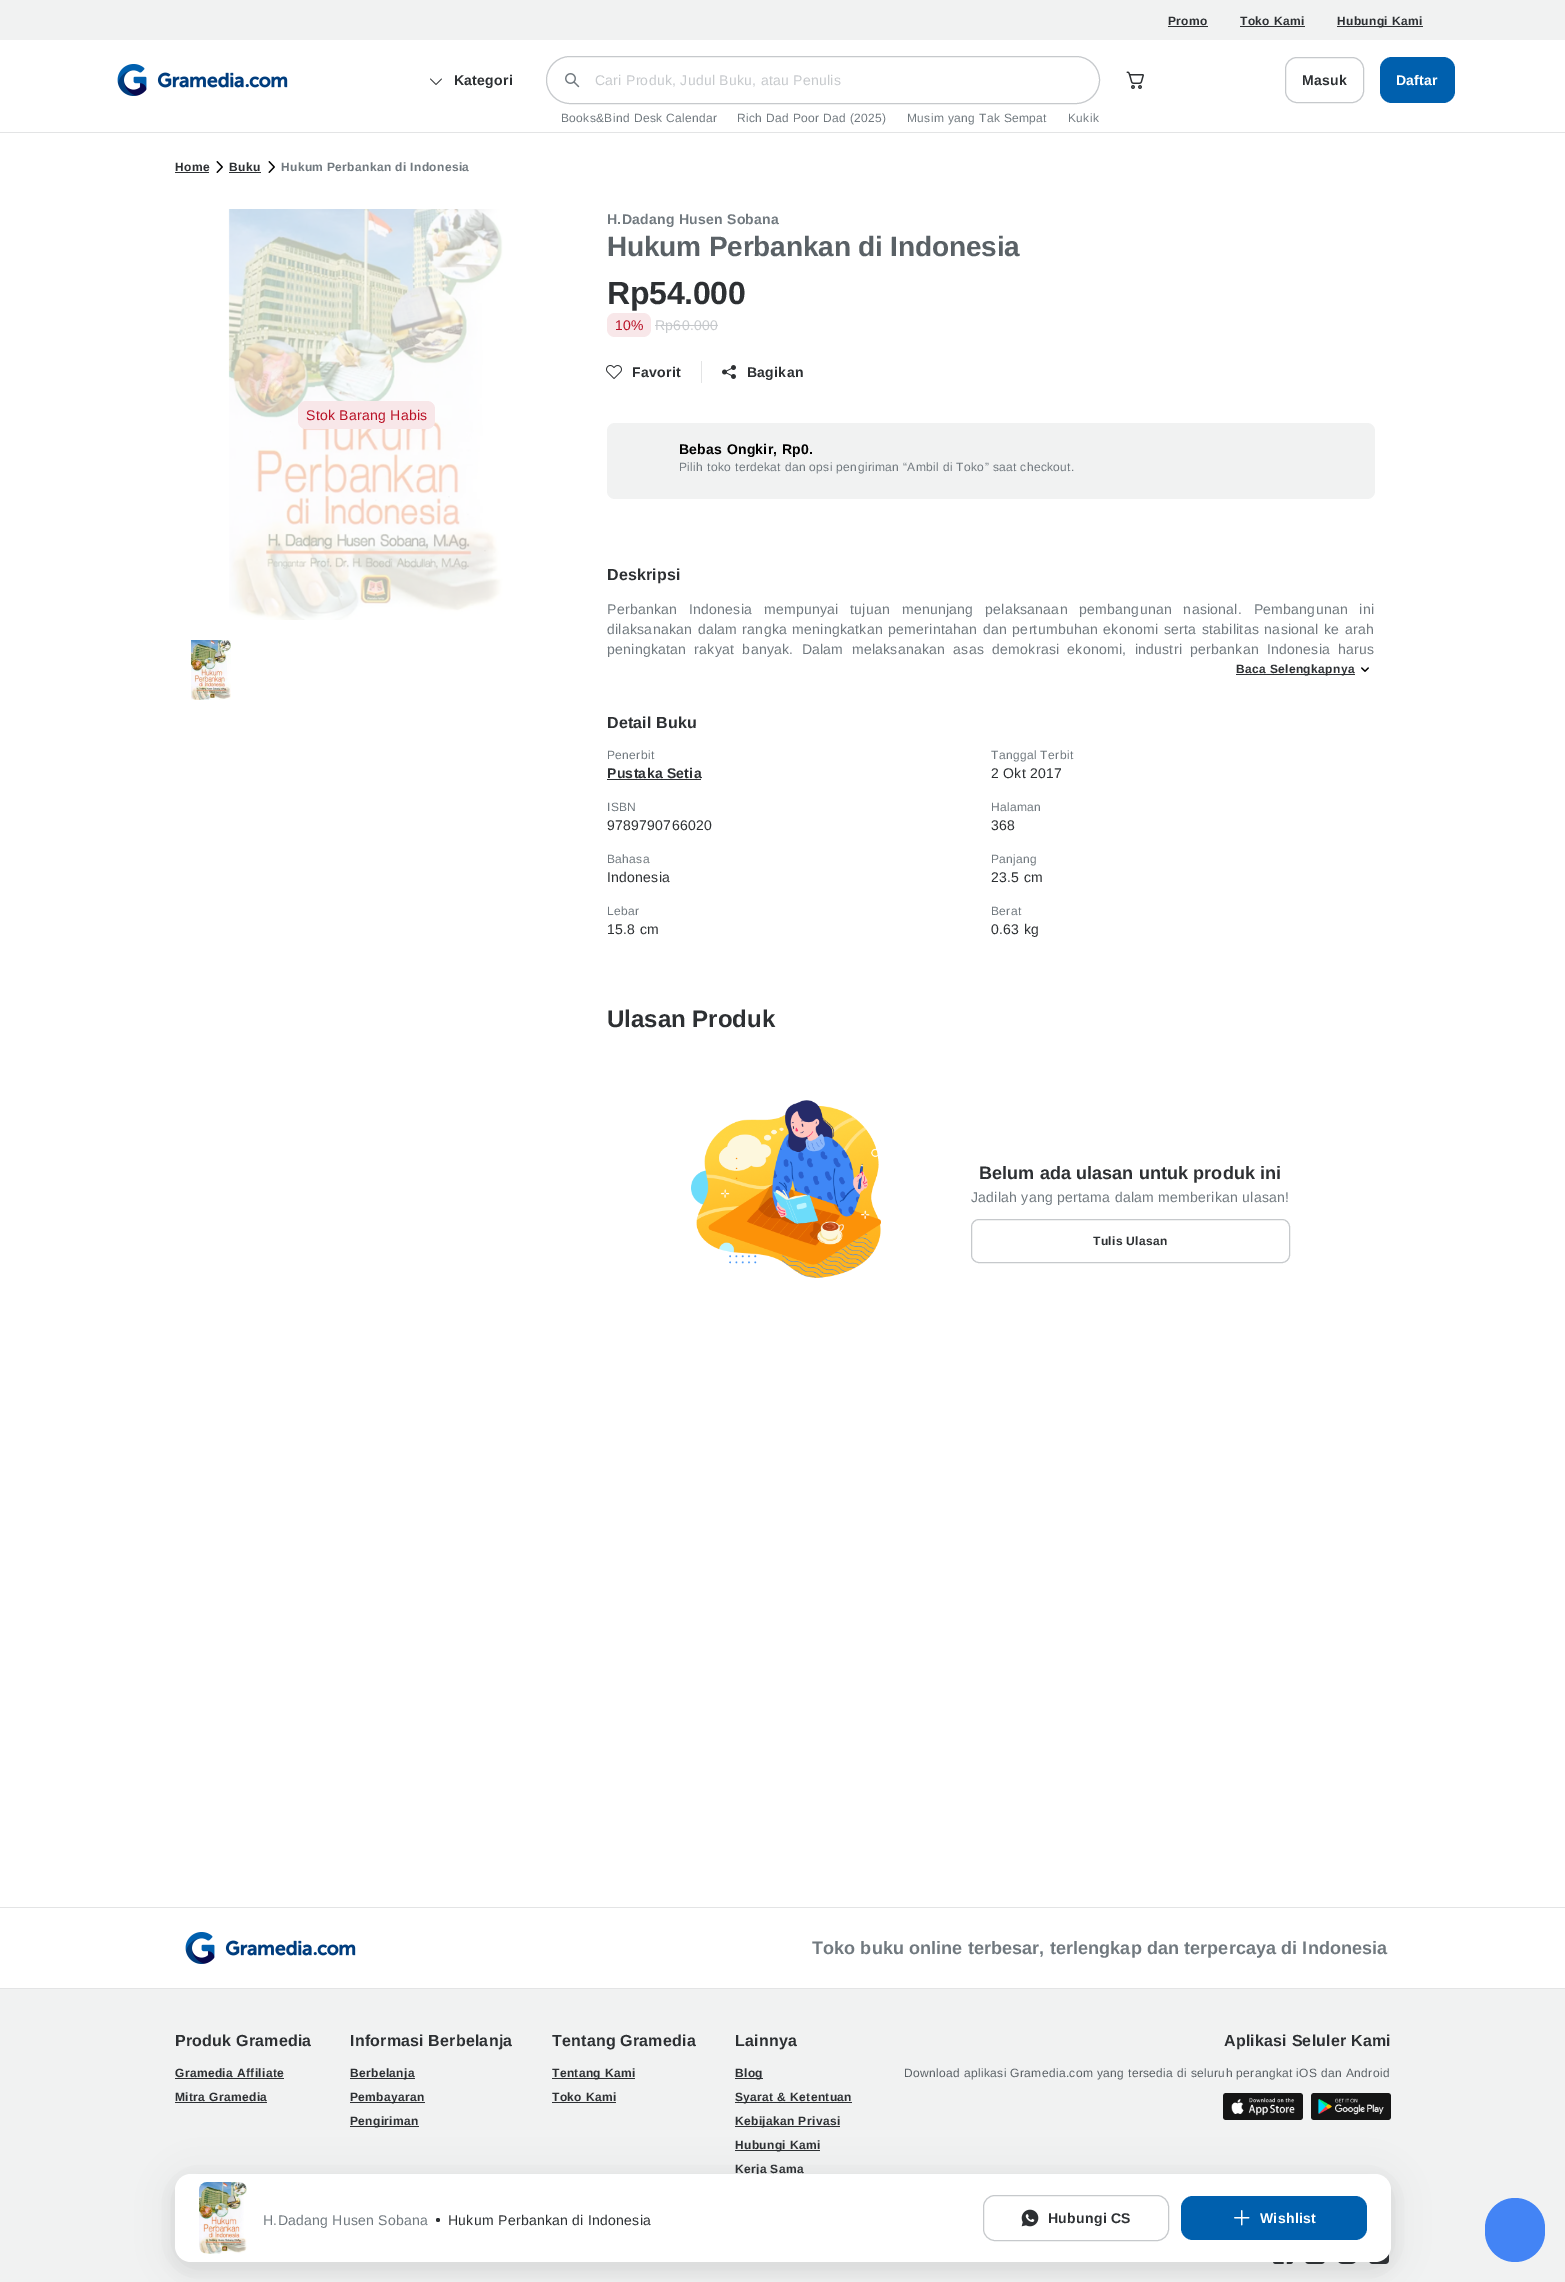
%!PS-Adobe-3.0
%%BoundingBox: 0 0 1565 2282
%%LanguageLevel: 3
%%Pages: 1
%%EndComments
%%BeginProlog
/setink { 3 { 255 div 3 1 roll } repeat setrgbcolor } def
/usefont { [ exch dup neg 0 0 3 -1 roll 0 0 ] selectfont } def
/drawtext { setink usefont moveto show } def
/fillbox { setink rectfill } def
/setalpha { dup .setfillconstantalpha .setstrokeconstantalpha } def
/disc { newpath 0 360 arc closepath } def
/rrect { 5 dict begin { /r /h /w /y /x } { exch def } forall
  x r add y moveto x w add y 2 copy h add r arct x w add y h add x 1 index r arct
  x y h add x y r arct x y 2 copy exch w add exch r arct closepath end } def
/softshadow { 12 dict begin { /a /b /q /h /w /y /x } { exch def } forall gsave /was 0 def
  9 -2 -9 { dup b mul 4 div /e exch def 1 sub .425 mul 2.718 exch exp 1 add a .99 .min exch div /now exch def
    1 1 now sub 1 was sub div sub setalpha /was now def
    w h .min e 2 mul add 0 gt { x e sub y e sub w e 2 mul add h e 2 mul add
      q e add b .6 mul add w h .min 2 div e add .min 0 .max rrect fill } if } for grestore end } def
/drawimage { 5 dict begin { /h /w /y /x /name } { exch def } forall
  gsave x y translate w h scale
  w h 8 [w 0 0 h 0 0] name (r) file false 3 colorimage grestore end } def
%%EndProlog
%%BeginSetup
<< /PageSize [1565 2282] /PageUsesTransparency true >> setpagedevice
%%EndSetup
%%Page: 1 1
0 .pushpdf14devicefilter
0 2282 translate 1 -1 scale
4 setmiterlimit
0 0 1565 2282 255 255 255 fillbox
0 0 1565 40 241 242 242 fillbox
/LiberationSans-Bold 12 usefont
45 48 51 setink
1168 25 moveto 0.35 0 (Promo) ashow
1168 26 40 1 45 48 51 fillbox
1240 25 moveto 0.35 0 (Toko Kami) ashow
1240 26 65 1 45 48 51 fillbox
1337 26 86 1 45 48 51 fillbox
1337 25 moveto 0.35 0 (Hubungi Kami) ashow
(assets/img1.rgb) 117 64 171 32 drawimage
(assets/img2.rgb) 430 78 12 7 drawimage
/LiberationSans-Bold 14 usefont
454 85 moveto 0.28 0 (Kategori) ashow
198 201 204 setink
546.5 56.5 553 47 23.5 rrect stroke
(assets/img3.rgb) 565 73 15 15 drawimage
/LiberationSans-Regular 14 usefont
595 85 moveto 0.28 0 (Cari Produk, Judul Buku, atau Penulis) ashow
(assets/img4.rgb) 1126 71 18 18 drawimage
1285.5 57.5 78 45 11.5 rrect stroke
/LiberationSans-Bold 14 usefont
45 48 51 setink
1302 85 moveto 0.28 0 (Masuk) ashow
0 96 174 setink
1380 57 75 46 12 rrect fill
255 255 255 setink
1396 85 moveto 0.28 0 (Daftar) ashow
/LiberationSans-Regular 12 usefont
113 121 127 setink
561 122 moveto 0.35 0 (Books&Bind Desk Calendar) ashow
737 122 moveto 0.35 0 (Rich Dad Poor Dad \(2025\)) ashow
907 122 moveto 0.35 0 (Musim yang Tak Sempat) ashow
1068 122 moveto 0.35 0 (Kukik) ashow
0 132 1565 1 227 228 229 fillbox
/LiberationSans-Bold 12 usefont
45 48 51 setink
175 171 moveto 0.35 0 (Home) ashow
175 172 34 1 45 48 51 fillbox
(assets/img5.rgb) 216 161 7 12 drawimage
229 171 moveto 0.35 0 (Buku) ashow
229 172 32 1 45 48 51 fillbox
(assets/img5.rgb) 268 161 7 12 drawimage
113 121 127 setink
281 171 moveto 0.35 0 (Hukum Perbankan di Indonesia) ashow
(assets/img6.rgb) 228 209 275 411 drawimage
248 231 233 setink
298 401 137 28 8 rrect fill
/LiberationSans-Regular 14 usefont
185 17 38 setink
306 420 moveto 0.28 0 (Stok Barang Habis) ashow
(assets/img7.rgb) 191 640 40 60 drawimage
/LiberationSans-Bold 14 usefont
113 121 127 setink
607 224 moveto 0.28 0 (H.Dadang Husen Sobana) ashow
/LiberationSans-Bold 28 usefont
90 97 102 setink
607 256 moveto -0.15 0 (Hukum Perbankan di Indonesia) ashow
/LiberationSans-Bold 32 usefont
45 48 51 setink
607 304 moveto -0.25 0 (Rp54.000) ashow
248 231 233 setink
615 313 moveto 631 313 lineto 631 337 lineto 615 337 lineto 610.5 337 607 333.5 607 329 curveto 607 321 lineto 607 316.5 610.5 313 615 313 curveto closepath fill
631 313 moveto 643 313 lineto 647.5 313 651 316.5 651 321 curveto 651 329 lineto 651 333.5 647.5 337 643 337 curveto 631 337 lineto closepath fill
/LiberationSans-Regular 14 usefont
185 17 38 setink
615 330 moveto 0.28 0 (10%) ashow
198 201 204 setink
655 330 moveto 0.28 0 (Rp60.000) ashow
655 325 63 1 198 201 204 fillbox
(assets/img8.rgb) 606 365 16 14 drawimage
/LiberationSans-Bold 14 usefont
45 48 51 setink
632 377 moveto 0.28 0 (Favorit) ashow
701 361 1 22 227 228 229 fillbox
(assets/img9.rgb) 722 365 14 14 drawimage
45 48 51 setink
747 377 moveto 0.28 0 (Bagikan) ashow
241 242 242 setink
607 423 768 76 8 rrect fill
0 0 0 setink
679 454 moveto 0.28 0 (Bebas Ongkir, Rp0.) ashow
/LiberationSans-Regular 12 usefont
113 121 127 setink
679 471 moveto 0.35 0 (Pilih toko terdekat dan opsi pengiriman “Ambil di Toko” saat checkout.) ashow
/LiberationSans-Bold 16 usefont
45 48 51 setink
607 580 moveto 0.2 0 (Deskripsi) ashow
/LiberationSans-Regular 14 usefont
113 121 127 setink
607 614 moveto 7.5 0 32 0.28 0 (Perbankan Indonesia mempunyai tujuan menunjang pelaksanaan pembangunan nasional. Pembangunan ini) awidthshow
607 634 moveto 1.3 0 32 0.28 0 (dilaksanakan dalam rangka meningkatkan pemerintahan dan pertumbuhan ekonomi serta stabilitas nasional ke arah) awidthshow
607 654 moveto 4 0 32 0.28 0 (peningkatan rakyat banyak. Dalam melaksanakan asas demokrasi ekonomi, industri perbankan Indonesia harus) awidthshow
1236 674 119 1 45 48 51 fillbox
/LiberationSans-Bold 12 usefont
1236 673 moveto 0.35 0 (Baca Selengkapnya) ashow
(assets/img10.rgb) 1361 667 8 5 drawimage
/LiberationSans-Bold 16 usefont
607 728 moveto 0.2 0 (Detail Buku) ashow
/LiberationSans-Regular 12 usefont
113 121 127 setink
607 759 moveto 0.35 0 (Penerbit) ashow
/LiberationSans-Bold 14 usefont
45 48 51 setink
607 778 moveto 0.28 0 (Pustaka Setia) ashow
607 779 94 1 45 48 51 fillbox
/LiberationSans-Regular 12 usefont
113 121 127 setink
991 759 moveto 0.35 0 (Tanggal Terbit) ashow
/LiberationSans-Regular 14 usefont
45 48 51 setink
991 778 moveto 0.28 0 (2 Okt 2017) ashow
/LiberationSans-Regular 12 usefont
113 121 127 setink
607 811 moveto 0.35 0 (ISBN) ashow
/LiberationSans-Regular 14 usefont
45 48 51 setink
607 830 moveto 0.28 0 (9789790766020) ashow
/LiberationSans-Regular 12 usefont
113 121 127 setink
991 811 moveto 0.35 0 (Halaman) ashow
/LiberationSans-Regular 14 usefont
45 48 51 setink
991 830 moveto 0.28 0 (368) ashow
/LiberationSans-Regular 12 usefont
113 121 127 setink
607 863 moveto 0.35 0 (Bahasa) ashow
/LiberationSans-Regular 14 usefont
45 48 51 setink
607 882 moveto 0.28 0 (Indonesia) ashow
/LiberationSans-Regular 12 usefont
113 121 127 setink
991 863 moveto 0.35 0 (Panjang) ashow
/LiberationSans-Regular 14 usefont
45 48 51 setink
991 882 moveto 0.28 0 (23.5 cm) ashow
/LiberationSans-Regular 12 usefont
113 121 127 setink
607 915 moveto 0.35 0 (Lebar) ashow
/LiberationSans-Regular 14 usefont
45 48 51 setink
607 934 moveto 0.28 0 (15.8 cm) ashow
/LiberationSans-Regular 12 usefont
113 121 127 setink
991 915 moveto 0.35 0 (Berat) ashow
/LiberationSans-Regular 14 usefont
45 48 51 setink
991 934 moveto 0.28 0 (0.63 kg) ashow
(Ulasan Produk) 607 1027 /LiberationSans-Bold 24 45 48 51 drawtext
(assets/img11.rgb) 691 1100 190 178 drawimage
/LiberationSans-Bold 18 usefont
979 1179 moveto 0.1 0 (Belum ada ulasan untuk produk ini) ashow
/LiberationSans-Regular 14 usefont
113 121 127 setink
971 1202 moveto 0.28 0 (Jadilah yang pertama dalam memberikan ulasan!) ashow
198 201 204 setink
971.5 1219.5 318 43 7.5 rrect stroke
/LiberationSans-Bold 12 usefont
45 48 51 setink
1093 1245 moveto 0.35 0 (Tulis Ulasan) ashow
0 1989 1565 293 241 242 242 fillbox
350 2126 69 1 45 48 51 fillbox
735 2126 105 1 45 48 51 fillbox
735 2150 85 1 45 48 51 fillbox
(assets/img17.rgb) 1273 2262 20 2 drawimage
(assets/img18.rgb) 1305 2262 20 2 drawimage
(assets/img19.rgb) 1338 2262 18 2 drawimage
(assets/img20.rgb) 1369 2253 20 11 drawimage
50 52 55 setink
175 2178 1216 88 16 18 0.1 softshadow
169 2176 1228 100 22 6 0.06 softshadow
45 48 51 setink
735 2173 moveto 0.35 0 (Kerja Sama) ashow
255 255 255 setink
175 2174 1216 88 16 rrect fill
(assets/img12.rgb) 199 2182 48 72 drawimage
/LiberationSans-Regular 14 usefont
113 121 127 setink
263 2225 moveto 0.28 0 (H.Dadang Husen Sobana) ashow
45 48 51 setink
438 2220 2 disc fill
448 2225 moveto 0.28 0 (Hukum Perbankan di Indonesia) ashow
198 201 204 setink
983.5 2195.5 185 45 11.5 rrect stroke
(assets/img13.rgb) 1021 2209 18 18 drawimage
/LiberationSans-Bold 14 usefont
45 48 51 setink
1048 2223 moveto 0.28 0 (Hubungi CS) ashow
0 96 174 setink
1181 2196 186 44 12 rrect fill
(assets/img14.rgb) 1234 2210 16 16 drawimage
255 255 255 setink
1260 2223 moveto 0.28 0 (Wishlist) ashow
0 1907 1565 1 227 228 229 fillbox
(assets/img1.rgb) 185 1932 171 32 drawimage
/LiberationSans-Bold 18 usefont
113 121 127 setink
812 1954 moveto 0.1 0 (Toko buku online terbesar, terlengkap dan terpercaya di Indonesia) ashow
0 1988 1565 1 227 228 229 fillbox
/LiberationSans-Bold 16 usefont
45 48 51 setink
175 2046 moveto 0.2 0 (Produk Gramedia) ashow
/LiberationSans-Bold 12 usefont
175 2077 moveto 0.35 0 (Gramedia Affiliate) ashow
175 2078 109 1 45 48 51 fillbox
175 2101 moveto 0.35 0 (Mitra Gramedia) ashow
175 2102 92 1 45 48 51 fillbox
/LiberationSans-Bold 16 usefont
350 2046 moveto 0.2 0 (Informasi Berbelanja) ashow
350 2078 65 1 45 48 51 fillbox
/LiberationSans-Bold 12 usefont
350 2077 moveto 0.35 0 (Berbelanja) ashow
350 2102 75 1 45 48 51 fillbox
350 2101 moveto 0.35 0 (Pembayaran) ashow
350 2125 moveto 0.35 0 (Pengiriman) ashow
/LiberationSans-Bold 16 usefont
552 2046 moveto 0.2 0 (Tentang Gramedia) ashow
552 2078 83 1 45 48 51 fillbox
/LiberationSans-Bold 12 usefont
552 2077 moveto 0.35 0 (Tentang Kami) ashow
552 2101 moveto 0.35 0 (Toko Kami) ashow
552 2102 64 1 45 48 51 fillbox
/LiberationSans-Bold 16 usefont
735 2046 moveto 0.2 0 (Lainnya) ashow
735 2078 28 1 45 48 51 fillbox
/LiberationSans-Bold 12 usefont
735 2077 moveto 0.35 0 (Blog) ashow
735 2102 117 1 45 48 51 fillbox
735 2101 moveto 0.35 0 (Syarat & Ketentuan) ashow
735 2125 moveto 0.35 0 (Kebijakan Privasi) ashow
735 2149 moveto 0.35 0 (Hubungi Kami) ashow
/LiberationSans-Bold 16 usefont
1224 2046 moveto 0.2 0 (Aplikasi Seluler Kami) ashow
/LiberationSans-Regular 12 usefont
90 97 102 setink
904 2077 moveto 0.35 0 (Download aplikasi Gramedia.com yang tersedia di seluruh perangkat iOS dan Android) ashow
(assets/img15.rgb) 1223 2093 80 27 drawimage
(assets/img16.rgb) 1311 2093 80 27 drawimage
67 132 245 setink
1485 2198 60 64 30 rrect fill
.poppdf14devicefilter showpage
%%EOF
